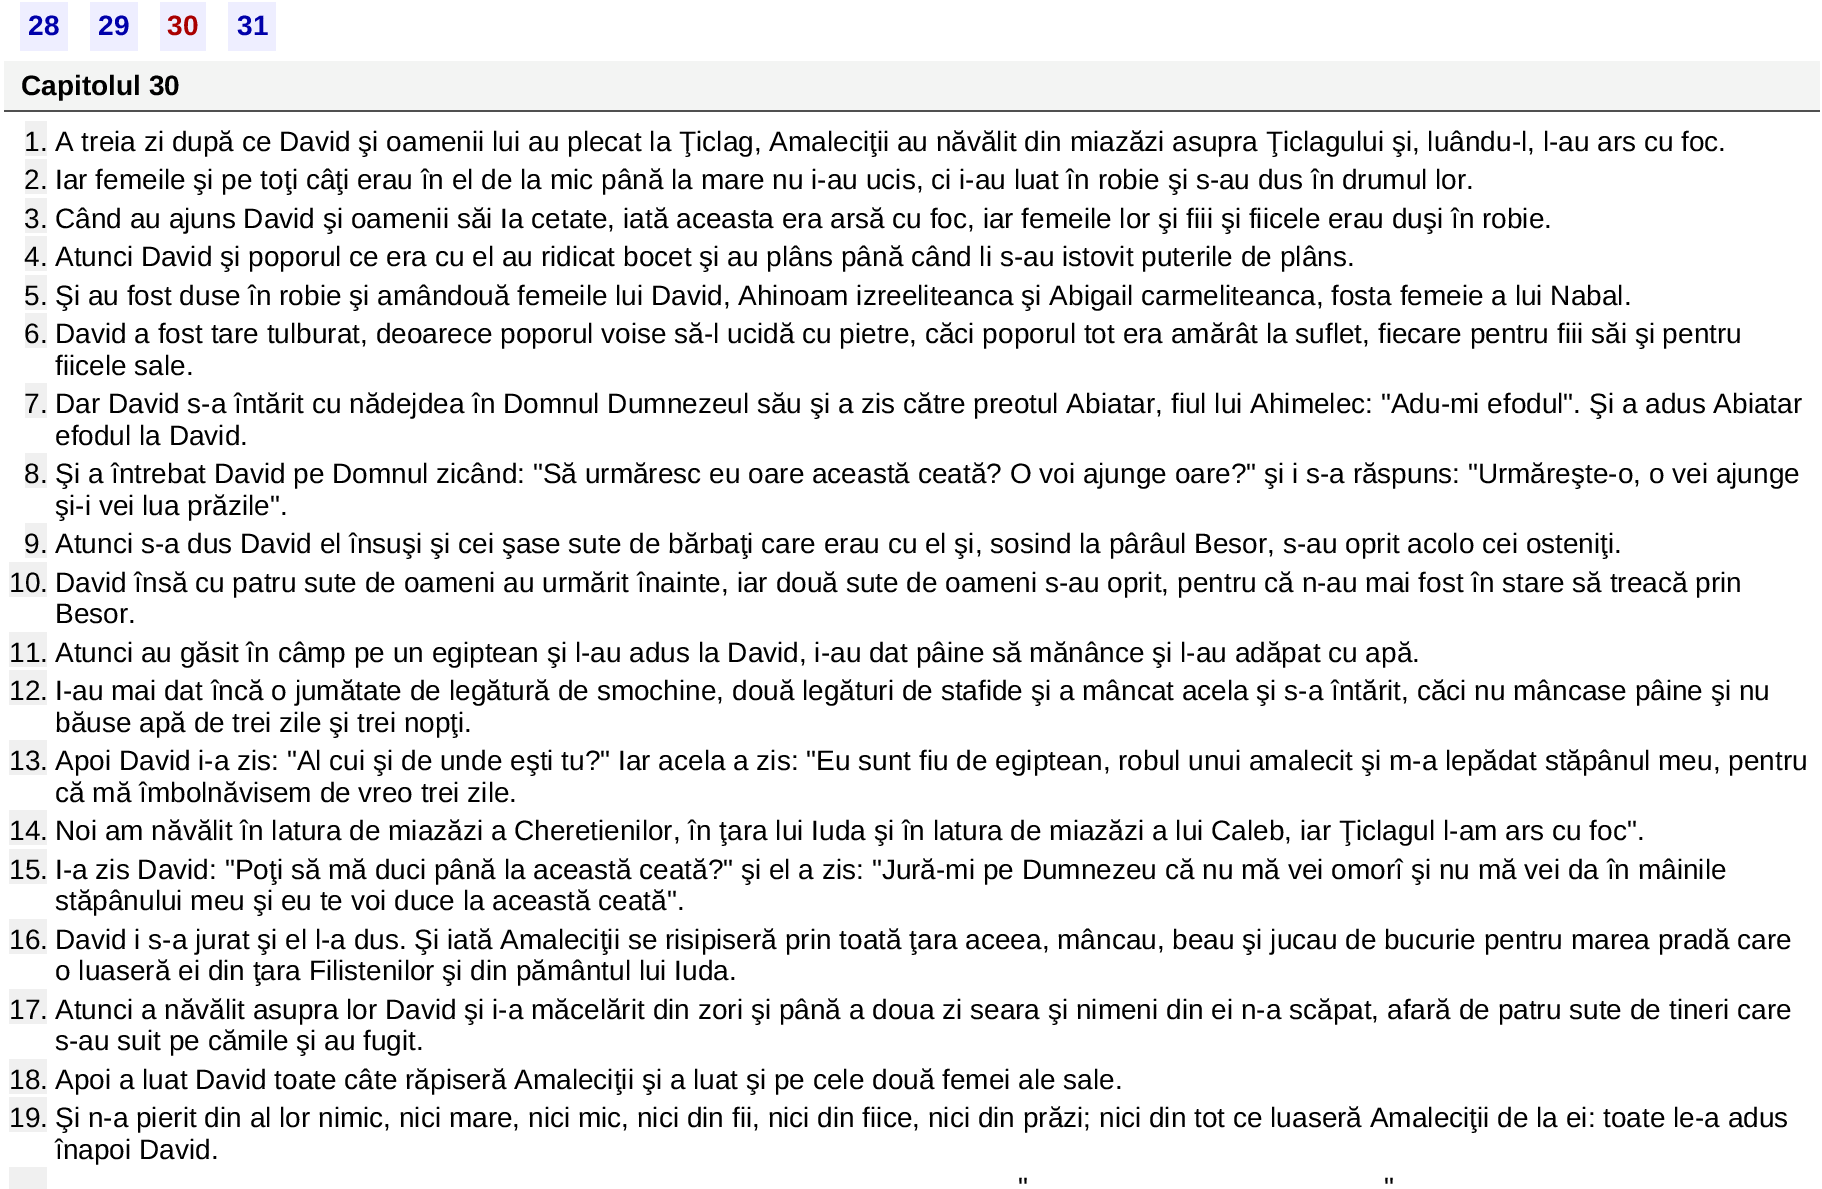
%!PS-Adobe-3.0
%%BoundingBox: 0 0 1822 1189
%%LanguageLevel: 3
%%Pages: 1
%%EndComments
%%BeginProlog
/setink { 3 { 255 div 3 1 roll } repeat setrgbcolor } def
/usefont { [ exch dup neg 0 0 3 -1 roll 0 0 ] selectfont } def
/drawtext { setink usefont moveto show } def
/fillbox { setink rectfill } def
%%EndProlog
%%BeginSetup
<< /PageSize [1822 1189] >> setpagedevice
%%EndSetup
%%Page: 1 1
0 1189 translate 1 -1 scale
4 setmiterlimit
0 0 1822 1189 255 255 255 fillbox
20 2 48 49 238 238 255 fillbox
(28) 28 35 /LiberationSans-Bold 28 0 0 170 drawtext
90 2 48 49 238 238 255 fillbox
(29) 98 35 /LiberationSans-Bold 28 0 0 170 drawtext
160 2 46 49 238 238 255 fillbox
(30) 167 35 /LiberationSans-Bold 28 170 0 0 drawtext
228 2 48 49 238 238 255 fillbox
(31) 237 35 /LiberationSans-Bold 28 0 0 170 drawtext
4 61 1816 49 243 244 243 fillbox
4 110 1816 2 80 80 80 fillbox
(Capitolul 30) 21 95 /LiberationSans-Bold 28 0 0 0 drawtext
25 121 22 35 240 240 240 fillbox
(1.) 24 151 /LiberationSans-Regular 28 0 0 0 drawtext
(A treia zi după ce David şi oamenii lui au plecat la Ţiclag, Amaleciţii au năvălit din miazăzi asupra Ţiclagului şi, luându-l, l-au ars cu foc.) 55 151 /LiberationSans-Regular 28 0 0 0 drawtext
25 159 22 35 240 240 240 fillbox
(2.) 24 189 /LiberationSans-Regular 28 0 0 0 drawtext
(Iar femeile şi pe toţi câţi erau în el de la mic până la mare nu i-au ucis, ci i-au luat în robie şi s-au dus în drumul lor.) 55 189 /LiberationSans-Regular 28 0 0 0 drawtext
25 198 22 35 240 240 240 fillbox
(3.) 24 228 /LiberationSans-Regular 28 0 0 0 drawtext
(Când au ajuns David şi oamenii săi Ia cetate, iată aceasta era arsă cu foc, iar femeile lor şi fiii şi fiicele erau duşi în robie.) 55 228 /LiberationSans-Regular 28 0 0 0 drawtext
25 236 22 35 240 240 240 fillbox
(4.) 24 266 /LiberationSans-Regular 28 0 0 0 drawtext
(Atunci David şi poporul ce era cu el au ridicat bocet şi au plâns până când li s-au istovit puterile de plâns.) 55 266 /LiberationSans-Regular 28 0 0 0 drawtext
25 275 22 35 240 240 240 fillbox
(5.) 24 305 /LiberationSans-Regular 28 0 0 0 drawtext
(Şi au fost duse în robie şi amândouă femeile lui David, Ahinoam izreeliteanca şi Abigail carmeliteanca, fosta femeie a lui Nabal.) 55 305 /LiberationSans-Regular 28 0 0 0 drawtext
25 313 22 35 240 240 240 fillbox
(6.) 24 343 /LiberationSans-Regular 28 0 0 0 drawtext
(David a fost tare tulburat, deoarece poporul voise să-l ucidă cu pietre, căci poporul tot era amărât la suflet, fiecare pentru fiii săi şi pentru) 55 343 /LiberationSans-Regular 28 0 0 0 drawtext
(fiicele sale.) 55 375 /LiberationSans-Regular 28 0 0 0 drawtext
25 383 22 35 240 240 240 fillbox
(7.) 24 413 /LiberationSans-Regular 28 0 0 0 drawtext
(Dar David s-a întărit cu nădejdea în Domnul Dumnezeul său şi a zis către preotul Abiatar, fiul lui Ahimelec: "Adu-mi efodul". Şi a adus Abiatar) 55 413 /LiberationSans-Regular 28 0 0 0 drawtext
(efodul la David.) 55 445 /LiberationSans-Regular 28 0 0 0 drawtext
25 453 22 35 240 240 240 fillbox
(8.) 24 483 /LiberationSans-Regular 28 0 0 0 drawtext
(Şi a întrebat David pe Domnul zicând: "Să urmăresc eu oare această ceată? O voi ajunge oare?" şi i s-a răspuns: "Urmăreşte-o, o vei ajunge) 55 483 /LiberationSans-Regular 28 0 0 0 drawtext
(şi-i vei lua prăzile".) 55 515 /LiberationSans-Regular 28 0 0 0 drawtext
25 523 22 35 240 240 240 fillbox
(9.) 24 553 /LiberationSans-Regular 28 0 0 0 drawtext
(Atunci s-a dus David el însuşi şi cei şase sute de bărbaţi care erau cu el şi, sosind la pârâul Besor, s-au oprit acolo cei osteniţi.) 55 553 /LiberationSans-Regular 28 0 0 0 drawtext
9 562 38 35 240 240 240 fillbox
(10.) 9 592 /LiberationSans-Regular 28 0 0 0 drawtext
(David însă cu patru sute de oameni au urmărit înainte, iar două sute de oameni s-au oprit, pentru că n-au mai fost în stare să treacă prin) 55 592 /LiberationSans-Regular 28 0 0 0 drawtext
(Besor.) 55 623 /LiberationSans-Regular 28 0 0 0 drawtext
9 632 38 35 240 240 240 fillbox
(11.) 9 662 /LiberationSans-Regular 28 0 0 0 drawtext
(Atunci au găsit în câmp pe un egiptean şi l-au adus la David, i-au dat pâine să mănânce şi l-au adăpat cu apă.) 55 662 /LiberationSans-Regular 28 0 0 0 drawtext
9 670 38 35 240 240 240 fillbox
(12.) 9 700 /LiberationSans-Regular 28 0 0 0 drawtext
(I-au mai dat încă o jumătate de legătură de smochine, două legături de stafide şi a mâncat acela şi s-a întărit, căci nu mâncase pâine şi nu) 55 700 /LiberationSans-Regular 28 0 0 0 drawtext
(băuse apă de trei zile şi trei nopţi.) 55 732 /LiberationSans-Regular 28 0 0 0 drawtext
9 740 38 35 240 240 240 fillbox
(13.) 9 770 /LiberationSans-Regular 28 0 0 0 drawtext
(Apoi David i-a zis: "Al cui şi de unde eşti tu?" Iar acela a zis: "Eu sunt fiu de egiptean, robul unui amalecit şi m-a lepădat stăpânul meu, pentru) 55 770 /LiberationSans-Regular 28 0 0 0 drawtext
(că mă îmbolnăvisem de vreo trei zile.) 55 802 /LiberationSans-Regular 28 0 0 0 drawtext
9 810 38 35 240 240 240 fillbox
(14.) 9 840 /LiberationSans-Regular 28 0 0 0 drawtext
(Noi am năvălit în latura de miazăzi a Cheretienilor, în ţara lui Iuda şi în latura de miazăzi a lui Caleb, iar Ţiclagul l-am ars cu foc".) 55 840 /LiberationSans-Regular 28 0 0 0 drawtext
9 849 38 35 240 240 240 fillbox
(15.) 9 879 /LiberationSans-Regular 28 0 0 0 drawtext
(I-a zis David: "Poţi să mă duci până la această ceată?" şi el a zis: "Jură-mi pe Dumnezeu că nu mă vei omorî şi nu mă vei da în mâinile) 55 879 /LiberationSans-Regular 28 0 0 0 drawtext
(stăpânului meu şi eu te voi duce la această ceată".) 55 910 /LiberationSans-Regular 28 0 0 0 drawtext
9 919 38 35 240 240 240 fillbox
(16.) 9 949 /LiberationSans-Regular 28 0 0 0 drawtext
(David i s-a jurat şi el l-a dus. Şi iată Amaleciţii se risipiseră prin toată ţara aceea, mâncau, beau şi jucau de bucurie pentru marea pradă care) 55 949 /LiberationSans-Regular 28 0 0 0 drawtext
(o luaseră ei din ţara Filistenilor şi din pământul lui Iuda.) 55 980 /LiberationSans-Regular 28 0 0 0 drawtext
9 989 38 35 240 240 240 fillbox
(17.) 9 1019 /LiberationSans-Regular 28 0 0 0 drawtext
(Atunci a năvălit asupra lor David şi i-a măcelărit din zori şi până a doua zi seara şi nimeni din ei n-a scăpat, afară de patru sute de tineri care) 55 1019 /LiberationSans-Regular 28 0 0 0 drawtext
(s-au suit pe cămile şi au fugit.) 55 1050 /LiberationSans-Regular 28 0 0 0 drawtext
9 1059 38 35 240 240 240 fillbox
(18.) 9 1089 /LiberationSans-Regular 28 0 0 0 drawtext
(Apoi a luat David toate câte răpiseră Amaleciţii şi a luat şi pe cele două femei ale sale.) 55 1089 /LiberationSans-Regular 28 0 0 0 drawtext
9 1097 38 35 240 240 240 fillbox
(19.) 9 1127 /LiberationSans-Regular 28 0 0 0 drawtext
(Şi n-a pierit din al lor nimic, nici mare, nici mic, nici din fii, nici din fiice, nici din prăzi; nici din tot ce luaseră Amaleciţii de la ei: toate le-a adus) 55 1127 /LiberationSans-Regular 28 0 0 0 drawtext
(înapoi David.) 55 1159 /LiberationSans-Regular 28 0 0 0 drawtext
9 1167 38 22 240 240 240 fillbox
(") 1018 1197 /LiberationSans-Regular 28 0 0 0 drawtext
(") 1384 1197 /LiberationSans-Regular 28 0 0 0 drawtext
showpage
%%EOF
